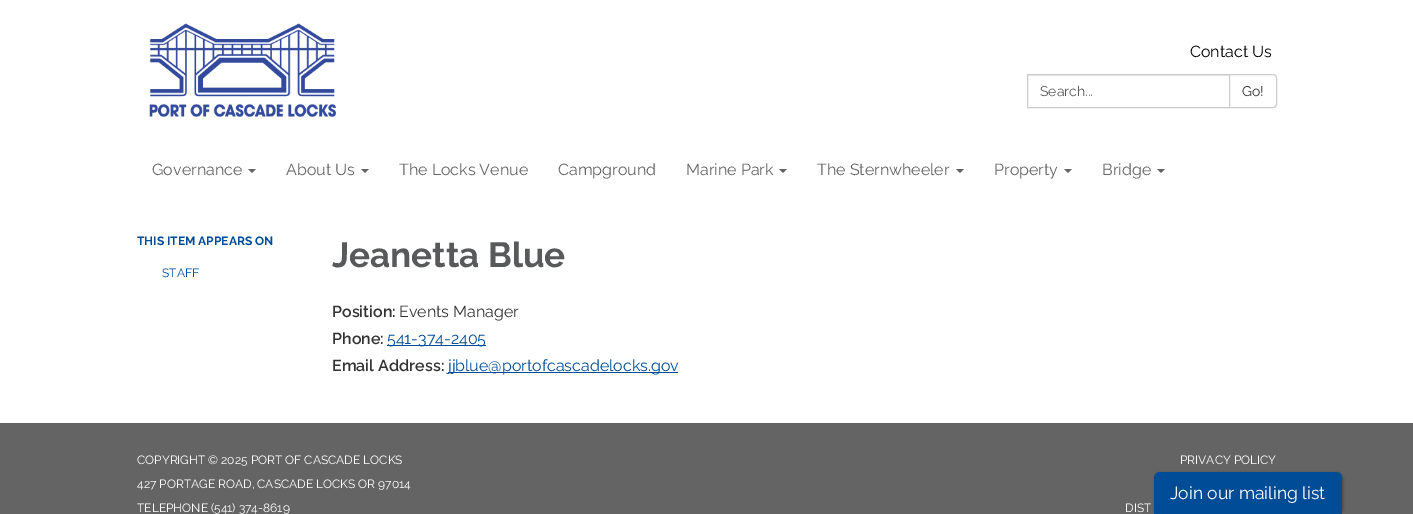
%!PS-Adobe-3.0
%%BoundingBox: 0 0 1413 514
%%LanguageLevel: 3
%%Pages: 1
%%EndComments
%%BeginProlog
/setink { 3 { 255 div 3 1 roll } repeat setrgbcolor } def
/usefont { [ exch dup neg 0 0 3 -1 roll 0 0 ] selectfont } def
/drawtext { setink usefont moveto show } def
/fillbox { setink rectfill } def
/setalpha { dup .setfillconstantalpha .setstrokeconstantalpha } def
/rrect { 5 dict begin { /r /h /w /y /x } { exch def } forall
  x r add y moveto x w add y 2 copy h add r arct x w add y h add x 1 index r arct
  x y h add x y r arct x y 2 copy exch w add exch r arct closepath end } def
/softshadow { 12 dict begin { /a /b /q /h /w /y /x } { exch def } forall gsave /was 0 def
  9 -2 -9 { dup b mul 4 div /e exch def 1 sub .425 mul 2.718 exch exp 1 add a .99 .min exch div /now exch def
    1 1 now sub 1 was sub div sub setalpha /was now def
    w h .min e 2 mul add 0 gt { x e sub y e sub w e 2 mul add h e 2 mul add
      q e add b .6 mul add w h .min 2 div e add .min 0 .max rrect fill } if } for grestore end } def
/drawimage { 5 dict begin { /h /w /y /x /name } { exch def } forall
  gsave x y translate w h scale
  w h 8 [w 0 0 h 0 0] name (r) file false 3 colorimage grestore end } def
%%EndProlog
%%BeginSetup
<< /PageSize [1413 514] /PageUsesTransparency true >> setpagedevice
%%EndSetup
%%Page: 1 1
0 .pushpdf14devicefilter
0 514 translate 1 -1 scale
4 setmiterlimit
0 0 1413 514 100 100 100 fillbox
0 0 1413 145 255 255 255 fillbox
(assets/img1.rgb) 149 23 187 94 drawimage
(Contact Us) 1190 57 /Raleway-Regular 16 0 0 0 drawtext
1028 75 201 1 236 236 236 fillbox
204 204 204 setink
1027.5 74.5 202 33 rectstroke
(Search...) 1040 96 /Raleway-Regular 14 88 89 91 drawtext
255 255 255 setink
1229.5 74.5 moveto 1273 74.5 lineto 1275 74.5 1276.5 76 1276.5 78 curveto 1276.5 104 lineto 1276.5 106 1275 107.5 1273 107.5 curveto 1229.5 107.5 lineto closepath gsave fill grestore
204 204 204 setink
stroke
(Go!) 1242 96 /Raleway-Regular 14 51 51 51 drawtext
0 145 1413 278 255 255 255 fillbox
(Governance) 152 175 /Raleway-Regular 16 100 100 100 drawtext
248 169 moveto 256 169 lineto 252 173 lineto closepath fill
(About Us) 286 175 /Raleway-Regular 16 100 100 100 drawtext
361 169 moveto 369 169 lineto 365 173 lineto closepath fill
(The Locks Venue) 399 175 /Raleway-Regular 16 100 100 100 drawtext
(Campground) 558 175 /Raleway-Regular 16 100 100 100 drawtext
(Marine Park) 686 175 /Raleway-Regular 16 100 100 100 drawtext
779 169 moveto 787 169 lineto 783 173 lineto closepath fill
(The Sternwheeler) 817 175 /Raleway-Regular 16 100 100 100 drawtext
956 169 moveto 964 169 lineto 960 173 lineto closepath fill
(Property) 994 175 /Raleway-Regular 16 100 100 100 drawtext
1064 169 moveto 1072 169 lineto 1068 173 lineto closepath fill
(Bridge) 1102 175 /Raleway-Regular 16 100 100 100 drawtext
1157 169 moveto 1165 169 lineto 1161 173 lineto closepath fill
(THIS ITEM APPEARS ON) 137 245 /Raleway-Bold 12 0 76 151 drawtext
(STAFF) 162 277 /Raleway-Regular 12 0 76 151 drawtext
(Jeanetta Blue) 332 267 /Raleway-Bold 35 88 89 91 drawtext
(Position:) 332 317 /Raleway-SemiBold 16 51 51 51 drawtext
(Events Manager) 399 317 /Raleway-Regular 16 51 51 51 drawtext
(Phone:) 332 344 /Raleway-SemiBold 16 51 51 51 drawtext
387 345 99 1 0 76 151 fillbox
(541-374-2405) 387 344 /Raleway-Regular 16 0 76 151 drawtext
(Email Address:) 332 371 /Raleway-SemiBold 16 51 51 51 drawtext
448 372 230 1 0 76 151 fillbox
(jjblue@portofcascadelocks.gov) 448 371 /Raleway-Regular 16 0 76 151 drawtext
(COPYRIGHT © 2025 PORT OF CASCADE LOCKS) 137 464 /Raleway-Regular 12 255 255 255 drawtext
(427 PORTAGE ROAD, CASCADE LOCKS OR 97014) 137 488 /Raleway-Regular 12 255 255 255 drawtext
(TELEPHONE \(541\) 374-8619) 137 512 /Raleway-Regular 12 255 255 255 drawtext
(PRIVACY POLICY) 1180 464 /Raleway-Regular 12 255 255 255 drawtext
(DIST) 1125 512 /Raleway-Regular 12 255 255 255 drawtext
0 0 0 setink
1155 473 188 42 6 1.5 0.3 softshadow
0 76 151 setink
1160 472 moveto 1336 472 lineto 1339.5 472 1342 474.5 1342 478 curveto 1342 514 lineto 1154 514 lineto 1154 478 lineto 1154 474.5 1156.5 472 1160 472 curveto closepath fill
(Join our mailing list) 1170 499 /Raleway-Regular 17.5 255 255 255 drawtext
.poppdf14devicefilter showpage
%%EOF
